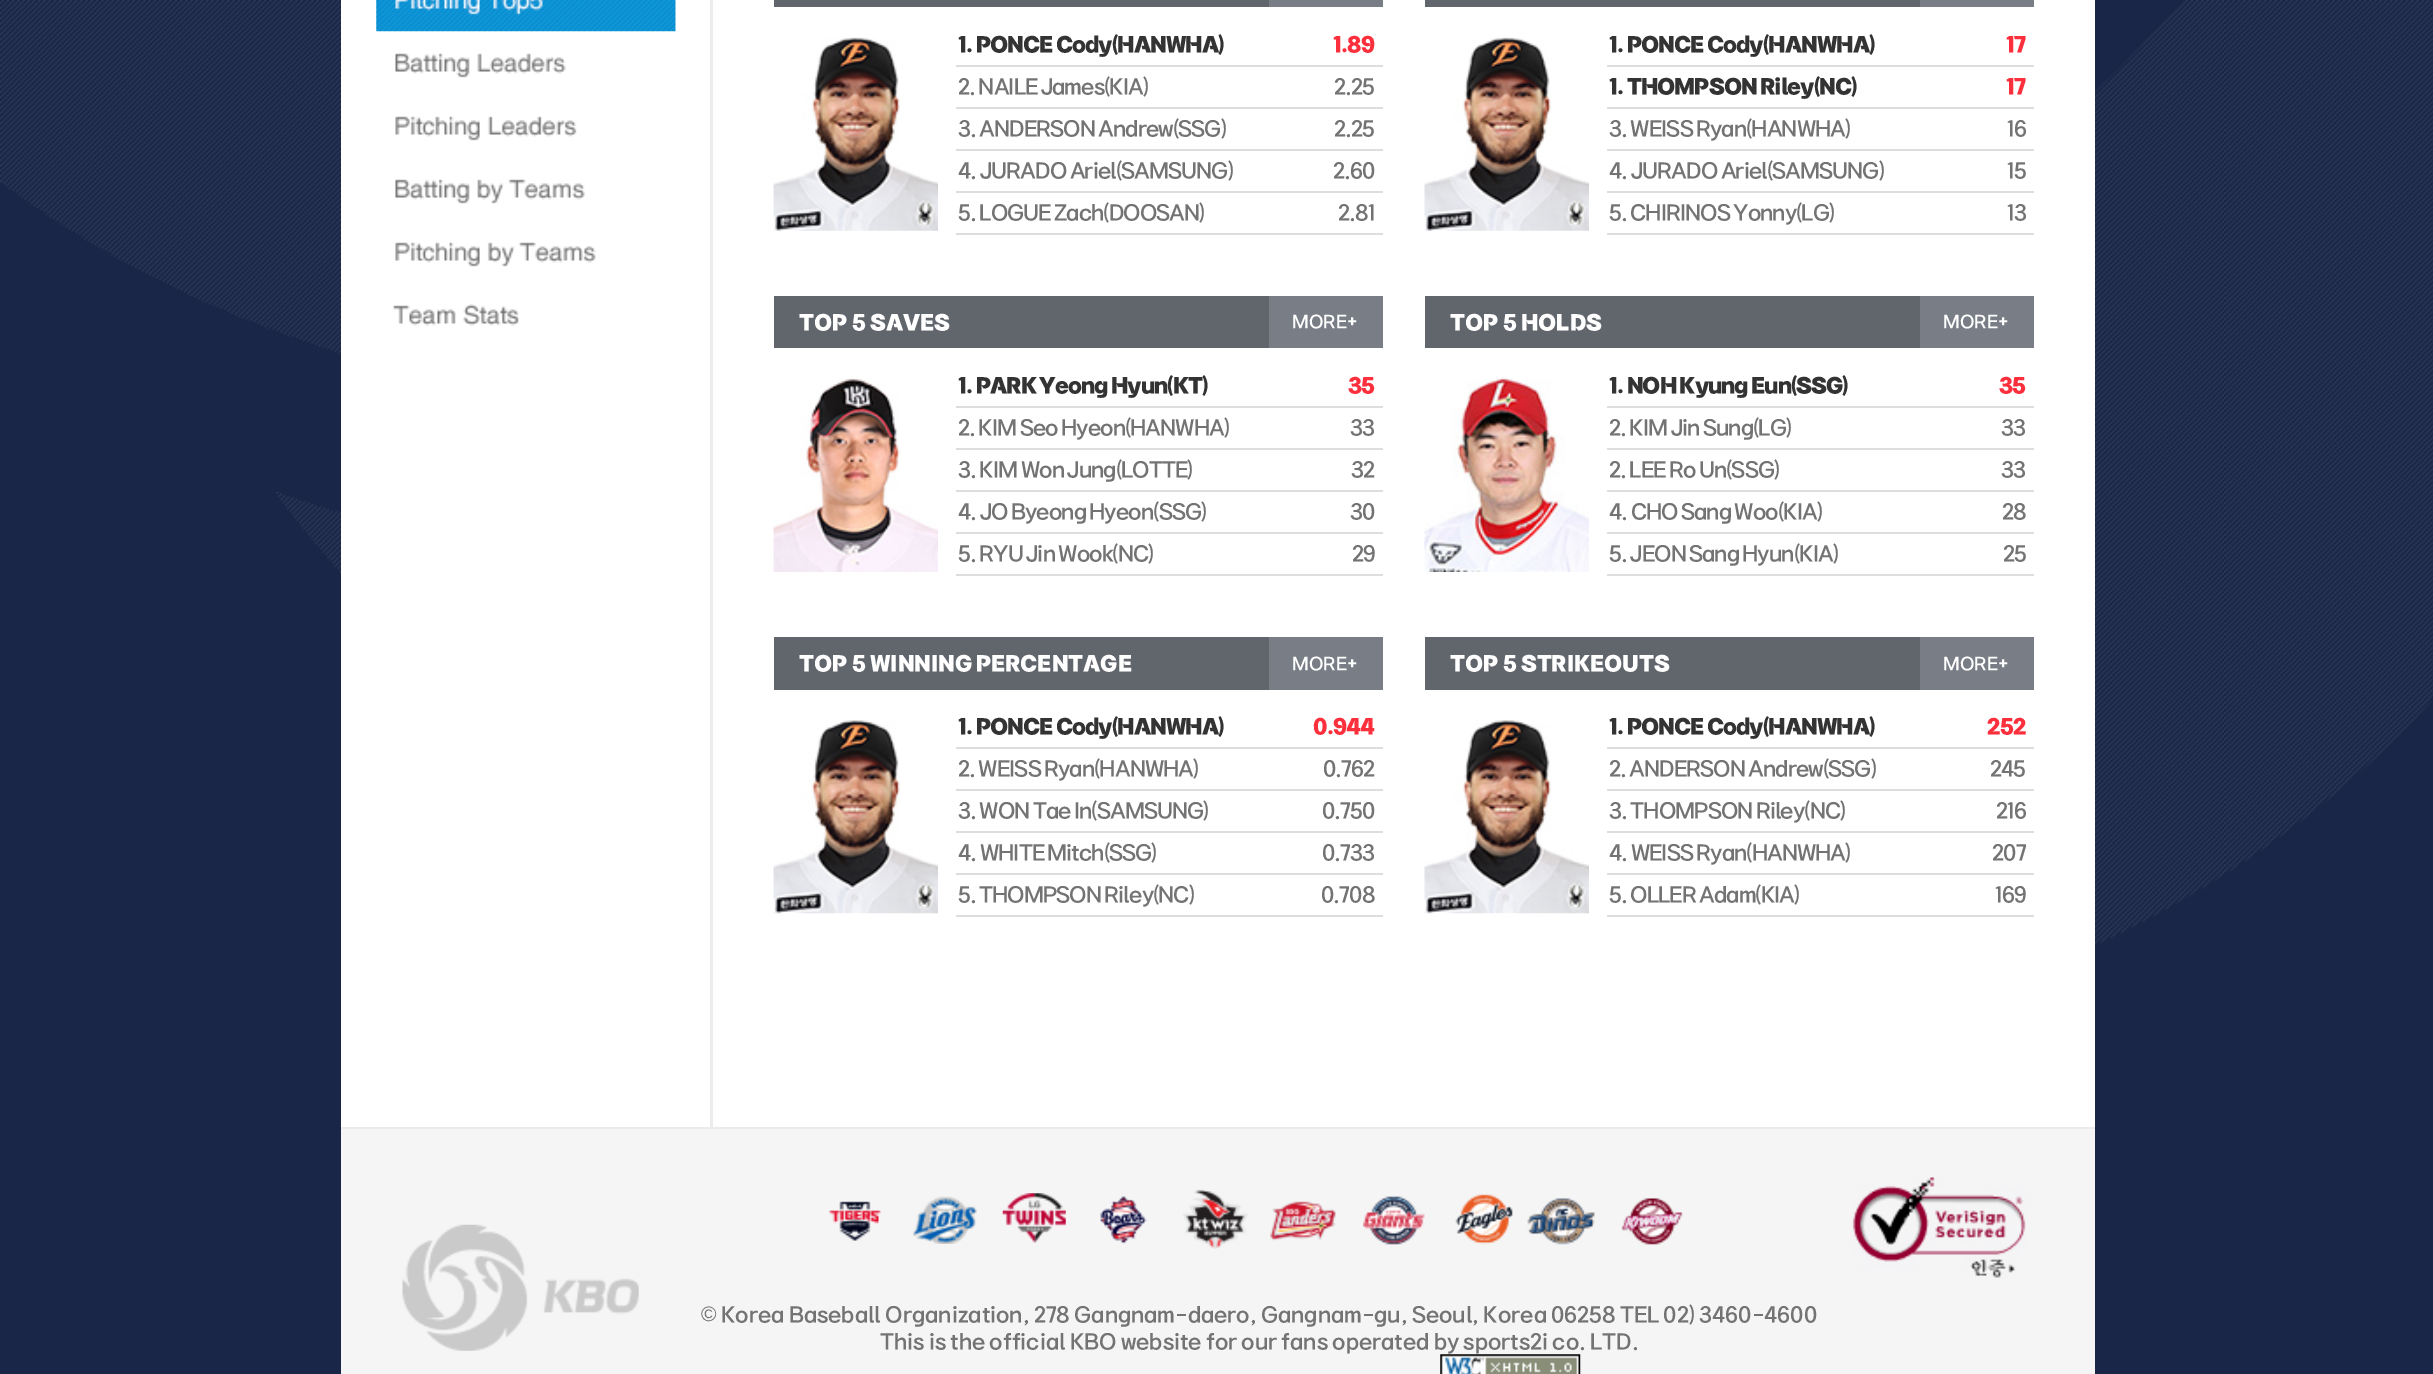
%!PS-Adobe-3.0
%%BoundingBox: 0 0 2433 1374
%%LanguageLevel: 3
%%Pages: 1
%%EndComments
%%BeginProlog
/setink { 3 { 255 div 3 1 roll } repeat setrgbcolor } def
/usefont { [ exch dup neg 0 0 3 -1 roll 0 0 ] selectfont } def
/drawtext { setink usefont moveto show } def
/fillbox { setink rectfill } def
/drawimage { 5 dict begin { /h /w /y /x /name } { exch def } forall
  gsave x y translate w h scale
  w h 8 [w 0 0 h 0 0] name (r) file false 3 colorimage grestore end } def
%%EndProlog
%%BeginSetup
<< /PageSize [2433 1374] >> setpagedevice
%%EndSetup
%%Page: 1 1
0 1374 translate 1 -1 scale
4 setmiterlimit
0 0 2433 1374 255 255 255 fillbox
(assets/img1.rgb) 0 0 2433 1374 drawimage
341 0 1754 1127 255 255 255 fillbox
710 0 3 1127 236 236 236 fillbox
(assets/img2.rgb) 376 0 300 32 drawimage
(assets/img3.rgb) 395 53 171 25 drawimage
(assets/img4.rgb) 395 116 182 25 drawimage
(assets/img5.rgb) 395 179 190 25 drawimage
(assets/img6.rgb) 395 242 201 25 drawimage
(assets/img7.rgb) 393 304 126 22 drawimage
774 0 495 7 97 101 108 fillbox
1269 0 114 7 120 125 134 fillbox
(assets/img8.rgb) 773 37 165 194 drawimage
956 65 427 2 221 221 221 fillbox
/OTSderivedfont-Bold 21 usefont
51 51 51 setink
958 51 moveto -0.9 0 (1. PONCE Cody\(HANWHA\)) ashow
252 48 61 setink
1333 51 moveto -0.9 0 (1.89) ashow
956 107 427 2 221 221 221 fillbox
/OTSderivedfont-Medium 21 usefont
115 115 115 setink
958 93 moveto -0.9 0 (2. NAILE James\(KIA\)) ashow
1334 93 moveto -0.9 0 (2.25) ashow
956 149 427 2 221 221 221 fillbox
115 115 115 setink
958 135 moveto -0.9 0 (3. ANDERSON Andrew\(SSG\)) ashow
1334 135 moveto -0.9 0 (2.25) ashow
956 191 427 2 221 221 221 fillbox
115 115 115 setink
958 177 moveto -0.9 0 (4. JURADO Ariel\(SAMSUNG\)) ashow
1333 177 moveto -0.9 0 (2.60) ashow
956 233 427 2 221 221 221 fillbox
115 115 115 setink
958 219 moveto -0.9 0 (5. LOGUE Zach\(DOOSAN\)) ashow
1338 219 moveto -0.9 0 (2.81) ashow
1425 0 495 7 97 101 108 fillbox
1920 0 114 7 120 125 134 fillbox
(assets/img9.rgb) 1424 37 165 194 drawimage
1607 65 427 2 221 221 221 fillbox
/OTSderivedfont-Bold 21 usefont
51 51 51 setink
1609 51 moveto -0.9 0 (1. PONCE Cody\(HANWHA\)) ashow
252 48 61 setink
2006 51 moveto -0.9 0 (17) ashow
1607 107 427 2 221 221 221 fillbox
51 51 51 setink
1609 93 moveto -0.9 0 (1. THOMPSON Riley\(NC\)) ashow
252 48 61 setink
2006 93 moveto -0.9 0 (17) ashow
1607 149 427 2 221 221 221 fillbox
/OTSderivedfont-Medium 21 usefont
115 115 115 setink
1609 135 moveto -0.9 0 (3. WEISS Ryan\(HANWHA\)) ashow
2007 135 moveto -0.9 0 (16) ashow
1607 191 427 2 221 221 221 fillbox
115 115 115 setink
1609 177 moveto -0.9 0 (4. JURADO Ariel\(SAMSUNG\)) ashow
2007 177 moveto -0.9 0 (15) ashow
1607 233 427 2 221 221 221 fillbox
115 115 115 setink
1609 219 moveto -0.9 0 (5. CHIRINOS Yonny\(LG\)) ashow
2007 219 moveto -0.9 0 (13) ashow
774 296 495 52 97 101 108 fillbox
(TOP 5 SAVES) 799 329 /OTSderivedfont-Bold 21 255 255 255 drawtext
1269 296 114 52 120 125 134 fillbox
(MORE+) 1292 327 /OTSderivedfont-Medium 17.5 255 255 255 drawtext
(assets/img10.rgb) 773 378 165 194 drawimage
956 406 427 2 221 221 221 fillbox
/OTSderivedfont-Bold 21 usefont
51 51 51 setink
958 392 moveto -0.9 0 (1. PARK Yeong Hyun\(KT\)) ashow
252 48 61 setink
1348 392 moveto -0.9 0 (35) ashow
956 448 427 2 221 221 221 fillbox
/OTSderivedfont-Medium 21 usefont
115 115 115 setink
958 434 moveto -0.9 0 (2. KIM Seo Hyeon\(HANWHA\)) ashow
1350 434 moveto -0.9 0 (33) ashow
956 490 427 2 221 221 221 fillbox
115 115 115 setink
958 476 moveto -0.9 0 (3. KIM Won Jung\(LOTTE\)) ashow
1351 476 moveto -0.9 0 (32) ashow
956 532 427 2 221 221 221 fillbox
115 115 115 setink
958 518 moveto -0.9 0 (4. JO Byeong Hyeon\(SSG\)) ashow
1350 518 moveto -0.9 0 (30) ashow
956 574 427 2 221 221 221 fillbox
115 115 115 setink
958 560 moveto -0.9 0 (5. RYU Jin Wook\(NC\)) ashow
1352 560 moveto -0.9 0 (29) ashow
1425 296 495 52 97 101 108 fillbox
(TOP 5 HOLDS) 1450 329 /OTSderivedfont-Bold 21 255 255 255 drawtext
1920 296 114 52 120 125 134 fillbox
(MORE+) 1943 327 /OTSderivedfont-Medium 17.5 255 255 255 drawtext
(assets/img11.rgb) 1424 377 165 195 drawimage
1607 406 427 2 221 221 221 fillbox
/OTSderivedfont-Bold 21 usefont
51 51 51 setink
1609 392 moveto -0.9 0 (1. NOH Kyung Eun\(SSG\)) ashow
252 48 61 setink
1999 392 moveto -0.9 0 (35) ashow
1607 448 427 2 221 221 221 fillbox
/OTSderivedfont-Medium 21 usefont
115 115 115 setink
1609 434 moveto -0.9 0 (2. KIM Jin Sung\(LG\)) ashow
2001 434 moveto -0.9 0 (33) ashow
1607 490 427 2 221 221 221 fillbox
115 115 115 setink
1609 476 moveto -0.9 0 (2. LEE Ro Un\(SSG\)) ashow
2001 476 moveto -0.9 0 (33) ashow
1607 532 427 2 221 221 221 fillbox
115 115 115 setink
1609 518 moveto -0.9 0 (4. CHO Sang Woo\(KIA\)) ashow
2002 518 moveto -0.9 0 (28) ashow
1607 574 427 2 221 221 221 fillbox
115 115 115 setink
1609 560 moveto -0.9 0 (5. JEON Sang Hyun\(KIA\)) ashow
2003 560 moveto -0.9 0 (25) ashow
774 637 495 53 97 101 108 fillbox
(TOP 5 WINNING PERCENTAGE) 799 670 /OTSderivedfont-Bold 21 255 255 255 drawtext
1269 637 114 53 120 125 134 fillbox
(MORE+) 1292 669 /OTSderivedfont-Medium 17.5 255 255 255 drawtext
(assets/img12.rgb) 773 720 165 194 drawimage
956 747 427 2 221 221 221 fillbox
/OTSderivedfont-Bold 21 usefont
51 51 51 setink
958 733 moveto -0.9 0 (1. PONCE Cody\(HANWHA\)) ashow
252 48 61 setink
1313 733 moveto -0.9 0 (0.944) ashow
956 789 427 2 221 221 221 fillbox
/OTSderivedfont-Medium 21 usefont
115 115 115 setink
958 775 moveto -0.9 0 (2. WEISS Ryan\(HANWHA\)) ashow
1323 775 moveto -0.9 0 (0.762) ashow
956 831 427 2 221 221 221 fillbox
115 115 115 setink
958 817 moveto -0.9 0 (3. WON Tae In\(SAMSUNG\)) ashow
1322 817 moveto -0.9 0 (0.750) ashow
956 873 427 2 221 221 221 fillbox
115 115 115 setink
958 859 moveto -0.9 0 (4. WHITE Mitch\(SSG\)) ashow
1322 859 moveto -0.9 0 (0.733) ashow
956 915 427 2 221 221 221 fillbox
115 115 115 setink
958 901 moveto -0.9 0 (5. THOMPSON Riley\(NC\)) ashow
1321 901 moveto -0.9 0 (0.708) ashow
1425 637 495 53 97 101 108 fillbox
(TOP 5 STRIKEOUTS) 1450 670 /OTSderivedfont-Bold 21 255 255 255 drawtext
1920 637 114 53 120 125 134 fillbox
(MORE+) 1943 669 /OTSderivedfont-Medium 17.5 255 255 255 drawtext
(assets/img13.rgb) 1424 720 165 194 drawimage
1607 747 427 2 221 221 221 fillbox
/OTSderivedfont-Bold 21 usefont
51 51 51 setink
1609 733 moveto -0.9 0 (1. PONCE Cody\(HANWHA\)) ashow
252 48 61 setink
1987 733 moveto -0.9 0 (252) ashow
1607 789 427 2 221 221 221 fillbox
/OTSderivedfont-Medium 21 usefont
115 115 115 setink
1609 775 moveto -0.9 0 (2. ANDERSON Andrew\(SSG\)) ashow
1990 775 moveto -0.9 0 (245) ashow
1607 831 427 2 221 221 221 fillbox
115 115 115 setink
1609 817 moveto -0.9 0 (3. THOMPSON Riley\(NC\)) ashow
1996 817 moveto -0.9 0 (216) ashow
1607 873 427 2 221 221 221 fillbox
115 115 115 setink
1609 859 moveto -0.9 0 (4. WEISS Ryan\(HANWHA\)) ashow
1992 859 moveto -0.9 0 (207) ashow
1607 915 427 2 221 221 221 fillbox
115 115 115 setink
1609 901 moveto -0.9 0 (5. OLLER Adam\(KIA\)) ashow
1995 901 moveto -0.9 0 (169) ashow
341 1129 1754 245 245 245 246 fillbox
341 1127 1754 2 235 235 235 fillbox
(assets/img14.rgb) 402 1224 237 127 drawimage
(assets/img15.rgb) 829 1201 52 40 drawimage
(assets/img16.rgb) 913 1196 64 48 drawimage
(assets/img17.rgb) 1002 1193 64 50 drawimage
(assets/img18.rgb) 1100 1196 48 48 drawimage
(assets/img19.rgb) 1182 1189 66 60 drawimage
(assets/img20.rgb) 1270 1201 66 40 drawimage
(assets/img21.rgb) 1363 1196 62 49 drawimage
(assets/img22.rgb) 1455 1194 58 51 drawimage
(assets/img23.rgb) 1527 1198 68 47 drawimage
(assets/img24.rgb) 1621 1198 62 47 drawimage
(©) 701 1321 /LiberationSans-Regular 21 115 115 115 drawtext
(Korea Baseball Organization, 278 Gangnam-daero, Gangnam-gu, Seoul, Korea 06258 TEL 02\) 3460-4600) 721 1321 /OTSderivedfont-Medium 21 115 115 115 drawtext
(This is the official KBO website for our fans operated by sports2i co. LTD.) 880 1348 /OTSderivedfont-Medium 21 115 115 115 drawtext
(assets/img25.rgb) 1440 1354 141 20 drawimage
(assets/img26.rgb) 1852 1177 174 101 drawimage
showpage
%%EOF
